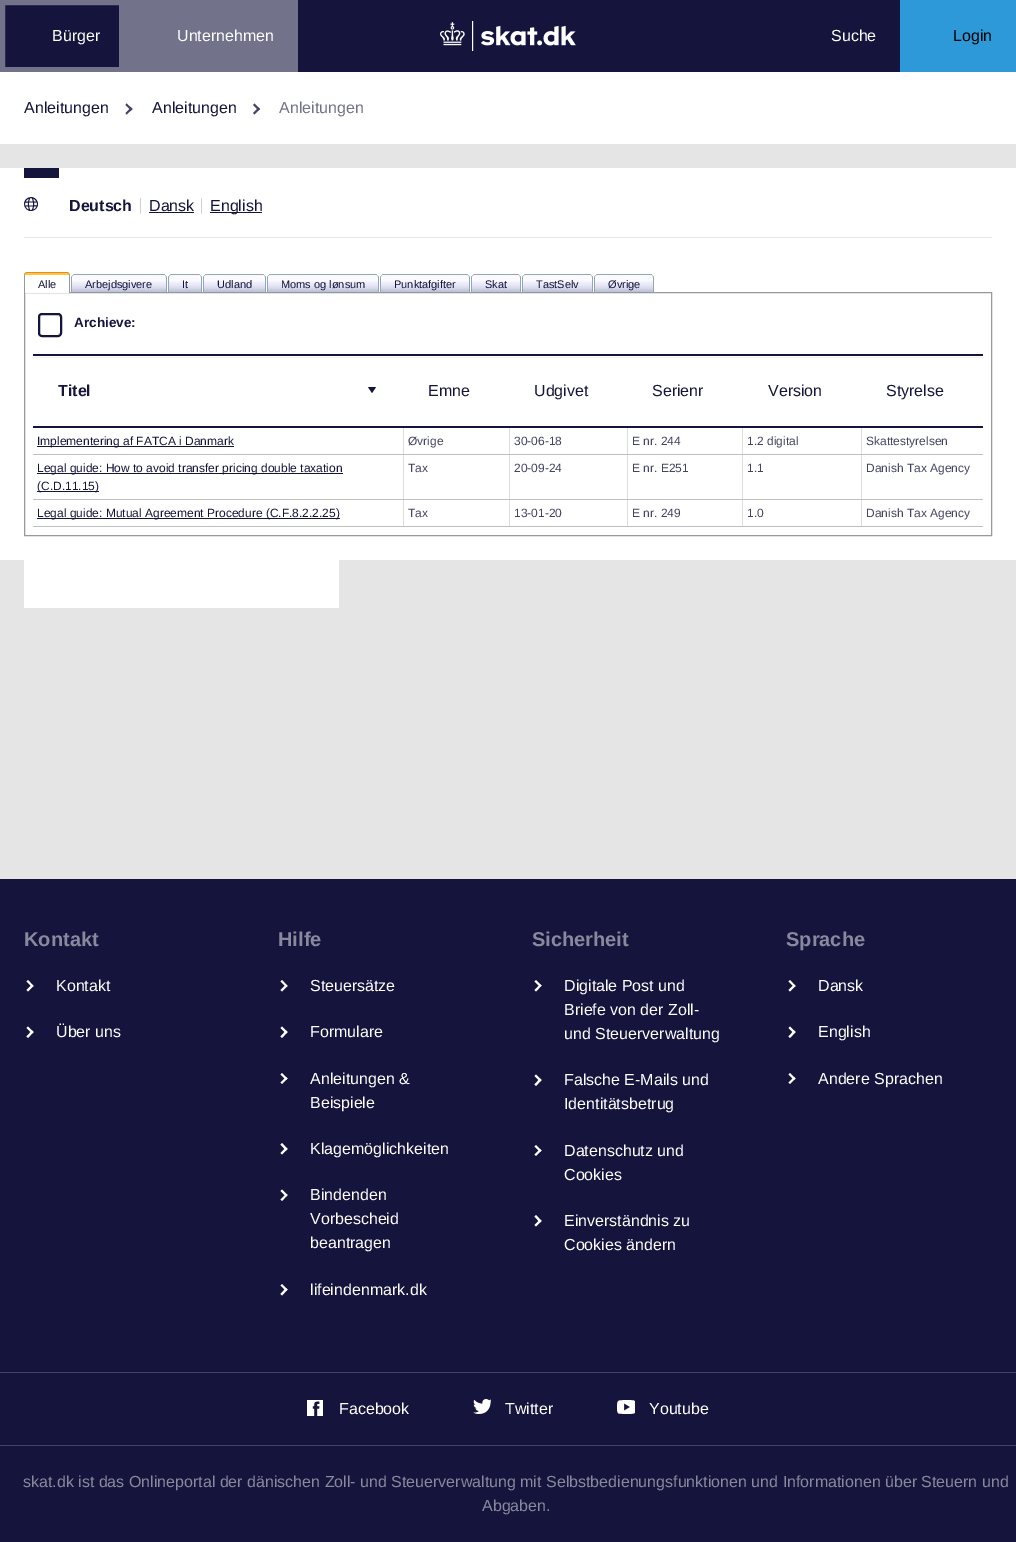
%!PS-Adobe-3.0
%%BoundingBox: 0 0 1016 1542
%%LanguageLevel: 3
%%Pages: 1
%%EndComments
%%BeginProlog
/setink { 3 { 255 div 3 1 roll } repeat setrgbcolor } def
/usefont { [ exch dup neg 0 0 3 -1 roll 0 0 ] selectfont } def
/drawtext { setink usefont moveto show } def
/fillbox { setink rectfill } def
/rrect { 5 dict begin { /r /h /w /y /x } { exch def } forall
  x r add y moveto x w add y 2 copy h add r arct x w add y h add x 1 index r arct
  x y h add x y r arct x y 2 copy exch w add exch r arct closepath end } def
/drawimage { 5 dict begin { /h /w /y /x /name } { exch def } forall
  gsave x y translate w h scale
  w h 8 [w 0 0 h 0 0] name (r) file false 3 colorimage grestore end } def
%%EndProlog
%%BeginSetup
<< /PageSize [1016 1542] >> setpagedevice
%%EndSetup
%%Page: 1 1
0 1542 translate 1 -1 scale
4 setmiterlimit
0 0 1016 1542 229 229 229 fillbox
5 0 895 72 20 20 60 fillbox
114 114 138 setink
5 setlinewidth
2.5 2.5 119 67 rectstroke
(Bürger) 52 41 /LiberationSans-Regular 16 255 255 255 drawtext
124 0 174 72 114 114 138 fillbox
(Unternehmen) 177 41 /LiberationSans-Regular 16 255 255 255 drawtext
(assets/img1.rgb) 440 21 136 30 drawimage
(Suche) 831 41 /LiberationSans-Regular 16 255 255 255 drawtext
900 0 116 72 46 153 217 fillbox
(Login) 953 41 /LiberationSans-Regular 16 0 0 0 drawtext
0 72 1016 72 255 255 255 fillbox
(Anleitungen) 24 113 /LiberationSans-Regular 16 20 20 60 drawtext
67 67 99 setink
126.5 103.5 moveto 132.5 109 lineto 131 110.5 lineto 125.5 105 lineto closepath fill
131 107.5 moveto 132.5 109 lineto 126.5 114.5 lineto 125.5 113 lineto closepath fill
(Anleitungen) 152 113 /LiberationSans-Regular 16 20 20 60 drawtext
67 67 99 setink
254.5 103.5 moveto 260 109 lineto 258.5 110.5 lineto 253 105 lineto closepath fill
258.5 107.5 moveto 260 109 lineto 254.5 114.5 lineto 253 113 lineto closepath fill
(Anleitungen) 279 113 /LiberationSans-Regular 16 114 114 138 drawtext
0 168 1016 392 255 255 255 fillbox
24 168 35 10 20 20 60 fillbox
24 237 968 1 229 229 229 fillbox
(assets/img2.rgb) 24 197 14 14 drawimage
(Deutsch) 69 211 /LiberationSans-Bold 16 20 20 60 drawtext
140 198 1 16 208 208 216 fillbox
(Dansk) 149 211 /LiberationSans-Regular 16 20 20 60 drawtext
149 212 45 1 20 20 60 fillbox
201 198 1 16 208 208 216 fillbox
210 212 52 1 20 20 60 fillbox
(English) 210 211 /LiberationSans-Regular 16 20 20 60 drawtext
153 153 153 setink
1 setlinewidth
24.5 292.5 967 243 rectstroke
(assets/img3.rgb) 67 272 4 21 drawimage
(assets/img4.rgb) 24 272 3 21 drawimage
(assets/img5.rgb) 27 272 40 21 drawimage
(Alle) 38 288 /LiberationSans-Regular 11 20 20 60 drawtext
(assets/img6.rgb) 164 274 4 19 drawimage
(assets/img7.rgb) 71 274 3 19 drawimage
(assets/img8.rgb) 74 274 90 19 drawimage
(Arbejdsgivere) 85 288 /LiberationSans-Regular 11 20 20 60 drawtext
(assets/img6.rgb) 199 274 4 19 drawimage
(assets/img7.rgb) 168 274 3 19 drawimage
(assets/img9.rgb) 171 274 28 19 drawimage
(It) 182 288 /LiberationSans-Regular 11 20 20 60 drawtext
(assets/img6.rgb) 263 274 4 19 drawimage
(assets/img7.rgb) 203 274 3 19 drawimage
(assets/img10.rgb) 206 274 57 19 drawimage
(Udland) 217 288 /LiberationSans-Regular 11 20 20 60 drawtext
(assets/img6.rgb) 376 274 4 19 drawimage
(assets/img7.rgb) 267 274 3 19 drawimage
(assets/img11.rgb) 270 274 106 19 drawimage
(Moms og lønsum) 281 288 /LiberationSans-Regular 11 20 20 60 drawtext
(assets/img6.rgb) 467 274 4 19 drawimage
(assets/img7.rgb) 380 274 3 19 drawimage
(assets/img12.rgb) 383 274 84 19 drawimage
(Punktafgifter) 394 288 /LiberationSans-Regular 11 20 20 60 drawtext
(assets/img6.rgb) 518 274 4 19 drawimage
(assets/img7.rgb) 471 274 3 19 drawimage
(assets/img13.rgb) 474 274 44 19 drawimage
(Skat) 485 288 /LiberationSans-Regular 11 20 20 60 drawtext
(assets/img6.rgb) 590 274 4 19 drawimage
(assets/img7.rgb) 522 274 3 19 drawimage
(assets/img14.rgb) 525 274 65 19 drawimage
(TastSelv) 536 288 /LiberationSans-Regular 11 20 20 60 drawtext
(assets/img6.rgb) 651 274 4 19 drawimage
(assets/img7.rgb) 594 274 3 19 drawimage
(assets/img15.rgb) 597 274 54 19 drawimage
(Øvrige) 608 288 /LiberationSans-Regular 11 20 20 60 drawtext
2 setlinewidth
39 314 22 22 3 rrect stroke
(Archieve:) 74 327 /LiberationSans-Bold 13.5 20 20 60 drawtext
33 357 950 1 242 242 242 fillbox
(Titel) 58 396 /LiberationSans-Bold 16 20 20 60 drawtext
368 387 moveto 376 387 lineto 372 393 lineto closepath fill
(Emne) 428 396 /LiberationSans-Regular 16 20 20 60 drawtext
(Udgivet) 534 396 /LiberationSans-Regular 16 20 20 60 drawtext
(Serienr) 652 396 /LiberationSans-Regular 16 20 20 60 drawtext
(Version) 768 396 /LiberationSans-Regular 16 20 20 60 drawtext
33 354 950 2 20 20 60 fillbox
861 526 122 1 192 192 192 fillbox
861 499 1 28 221 221 221 fillbox
861 499 122 1 192 192 192 fillbox
861 454 1 46 221 221 221 fillbox
861 454 122 1 192 192 192 fillbox
861 426 1 29 221 221 221 fillbox
742 526 120 1 192 192 192 fillbox
742 499 1 28 221 221 221 fillbox
742 499 120 1 192 192 192 fillbox
742 454 1 46 221 221 221 fillbox
742 454 120 1 192 192 192 fillbox
742 426 1 29 221 221 221 fillbox
627 526 116 1 192 192 192 fillbox
627 499 1 28 221 221 221 fillbox
627 499 116 1 192 192 192 fillbox
627 454 1 46 221 221 221 fillbox
627 454 116 1 192 192 192 fillbox
627 426 1 29 221 221 221 fillbox
509 526 119 1 192 192 192 fillbox
509 499 1 28 221 221 221 fillbox
509 499 119 1 192 192 192 fillbox
509 454 1 46 221 221 221 fillbox
509 454 119 1 192 192 192 fillbox
509 426 1 29 221 221 221 fillbox
403 526 107 1 192 192 192 fillbox
403 499 1 28 221 221 221 fillbox
403 499 107 1 192 192 192 fillbox
403 454 1 46 221 221 221 fillbox
403 454 107 1 192 192 192 fillbox
403 426 1 29 221 221 221 fillbox
33 426 950 2 20 20 60 fillbox
(Styrelse) 886 396 /LiberationSans-Regular 16 20 20 60 drawtext
33 454 371 1 192 192 192 fillbox
37 446 197 1 20 20 60 fillbox
(Implementering af FATCA i Danmark) 37 445 /LiberationSans-Regular 12 20 20 60 drawtext
(Øvrige) 408 445 /LiberationSans-Regular 12 67 67 99 drawtext
(30-06-18) 514 445 /LiberationSans-Regular 12 67 67 99 drawtext
(E nr. 244) 632 445 /LiberationSans-Regular 12 67 67 99 drawtext
(1.2 digital) 747 445 /LiberationSans-Regular 12 67 67 99 drawtext
(Skattestyrelsen) 866 445 /LiberationSans-Regular 12 67 67 99 drawtext
33 499 371 1 192 192 192 fillbox
37 473 306 1 20 20 60 fillbox
(Legal guide: How to avoid transfer pricing double taxation) 37 472 /LiberationSans-Regular 12 20 20 60 drawtext
37 491 62 1 20 20 60 fillbox
(\(C.D.11.15\)) 37 490 /LiberationSans-Regular 12 20 20 60 drawtext
(Tax) 408 472 /LiberationSans-Regular 12 67 67 99 drawtext
(20-09-24) 514 472 /LiberationSans-Regular 12 67 67 99 drawtext
(E nr. E251) 632 472 /LiberationSans-Regular 12 67 67 99 drawtext
(1.1) 747 472 /LiberationSans-Regular 12 67 67 99 drawtext
(Danish Tax Agency) 866 472 /LiberationSans-Regular 12 67 67 99 drawtext
33 526 371 1 192 192 192 fillbox
37 518 303 1 20 20 60 fillbox
(Legal guide: Mutual Agreement Procedure \(C.F.8.2.2.25\)) 37 517 /LiberationSans-Regular 12 20 20 60 drawtext
(Tax) 408 517 /LiberationSans-Regular 12 67 67 99 drawtext
(13-01-20) 514 517 /LiberationSans-Regular 12 67 67 99 drawtext
(E nr. 249) 632 517 /LiberationSans-Regular 12 67 67 99 drawtext
(1.0) 747 517 /LiberationSans-Regular 12 67 67 99 drawtext
(Danish Tax Agency) 866 517 /LiberationSans-Regular 12 67 67 99 drawtext
24 560 315 48 255 255 255 fillbox
0 879 1016 663 20 20 60 fillbox
(Kontakt) 24 946 /LiberationSans-Bold 20 137 137 157 drawtext
255 255 255 setink
28 980 moveto 33.5 986 lineto 32 987 lineto 26.5 981.5 lineto closepath fill
32 984.5 moveto 33.5 986 lineto 28 991.5 lineto 26.5 990 lineto closepath fill
(Kontakt) 56 991 /LiberationSans-Regular 16 255 255 255 drawtext
28 1026.5 moveto 33.5 1032 lineto 32 1033.5 lineto 26.5 1028 lineto closepath fill
32 1030.5 moveto 33.5 1032 lineto 28 1038 lineto 26.5 1036.5 lineto closepath fill
(Über uns) 56 1037 /LiberationSans-Regular 16 255 255 255 drawtext
(Hilfe) 278 946 /LiberationSans-Bold 20 137 137 157 drawtext
255 255 255 setink
282 980 moveto 287.5 986 lineto 286 987 lineto 280.5 981.5 lineto closepath fill
286 984.5 moveto 287.5 986 lineto 282 991.5 lineto 280.5 990 lineto closepath fill
(Steuersätze) 310 991 /LiberationSans-Regular 16 255 255 255 drawtext
282 1026.5 moveto 287.5 1032 lineto 286 1033.5 lineto 280.5 1028 lineto closepath fill
286 1030.5 moveto 287.5 1032 lineto 282 1038 lineto 280.5 1036.5 lineto closepath fill
(Formulare) 310 1037 /LiberationSans-Regular 16 255 255 255 drawtext
282 1073 moveto 287.5 1078.5 lineto 286 1080 lineto 280.5 1074.5 lineto closepath fill
286 1077 moveto 287.5 1078.5 lineto 282 1084 lineto 280.5 1082.5 lineto closepath fill
(Anleitungen &) 310 1084 /LiberationSans-Regular 16 255 255 255 drawtext
(Beispiele) 310 1108 /LiberationSans-Regular 16 255 255 255 drawtext
282 1143 moveto 287.5 1149 lineto 286 1150.5 lineto 280.5 1144.5 lineto closepath fill
286 1147.5 moveto 287.5 1149 lineto 282 1154.5 lineto 280.5 1153 lineto closepath fill
(Klagemöglichkeiten) 310 1154 /LiberationSans-Regular 16 255 255 255 drawtext
282 1189.5 moveto 287.5 1195 lineto 286 1196.5 lineto 280.5 1191 lineto closepath fill
286 1194 moveto 287.5 1195 lineto 282 1201 lineto 280.5 1199.5 lineto closepath fill
(Bindenden) 310 1200 /LiberationSans-Regular 16 255 255 255 drawtext
(Vorbescheid) 310 1224 /LiberationSans-Regular 16 255 255 255 drawtext
(beantragen) 310 1248 /LiberationSans-Regular 16 255 255 255 drawtext
282 1284 moveto 287.5 1289.5 lineto 286 1291 lineto 280.5 1285.5 lineto closepath fill
286 1288 moveto 287.5 1289.5 lineto 282 1295.5 lineto 280.5 1294 lineto closepath fill
(lifeindenmark.dk) 310 1295 /LiberationSans-Regular 16 255 255 255 drawtext
(Sicherheit) 532 946 /LiberationSans-Bold 20 137 137 157 drawtext
255 255 255 setink
536 980 moveto 541.5 985.5 lineto 540 987 lineto 534.5 981.5 lineto closepath fill
540 984.5 moveto 541.5 985.5 lineto 536 991.5 lineto 534.5 990 lineto closepath fill
(Digitale Post und) 564 991 /LiberationSans-Regular 16 255 255 255 drawtext
(Briefe von der Zoll-) 564 1015 /LiberationSans-Regular 16 255 255 255 drawtext
(und Steuerverwaltung) 564 1039 /LiberationSans-Regular 16 255 255 255 drawtext
536 1074.5 moveto 541.5 1080 lineto 540 1081.5 lineto 534.5 1076 lineto closepath fill
540 1078.5 moveto 541.5 1080 lineto 536 1086 lineto 534.5 1084.5 lineto closepath fill
(Falsche E-Mails und) 564 1085 /LiberationSans-Regular 16 255 255 255 drawtext
(Identitätsbetrug) 564 1109 /LiberationSans-Regular 16 255 255 255 drawtext
536 1145 moveto 541.5 1150.5 lineto 540 1152 lineto 534.5 1146.5 lineto closepath fill
540 1149 moveto 541.5 1150.5 lineto 536 1156 lineto 534.5 1154.5 lineto closepath fill
(Datenschutz und) 564 1156 /LiberationSans-Regular 16 255 255 255 drawtext
(Cookies) 564 1180 /LiberationSans-Regular 16 255 255 255 drawtext
536 1215 moveto 541.5 1221 lineto 540 1222.5 lineto 534.5 1216.5 lineto closepath fill
540 1219.5 moveto 541.5 1221 lineto 536 1226.5 lineto 534.5 1225 lineto closepath fill
(Einverständnis zu) 564 1226 /LiberationSans-Regular 16 255 255 255 drawtext
(Cookies ändern) 564 1250 /LiberationSans-Regular 16 255 255 255 drawtext
(Sprache) 786 946 /LiberationSans-Bold 20 137 137 157 drawtext
255 255 255 setink
790 980 moveto 795.5 986 lineto 794 987 lineto 788.5 981.5 lineto closepath fill
794 984.5 moveto 795.5 986 lineto 790 991.5 lineto 788.5 990 lineto closepath fill
(Dansk) 818 991 /LiberationSans-Regular 16 255 255 255 drawtext
790 1026.5 moveto 795.5 1032 lineto 794 1033.5 lineto 788.5 1028 lineto closepath fill
794 1030.5 moveto 795.5 1032 lineto 790 1038 lineto 788.5 1036.5 lineto closepath fill
(English) 818 1037 /LiberationSans-Regular 16 255 255 255 drawtext
790 1073 moveto 795.5 1078.5 lineto 794 1080 lineto 788.5 1074.5 lineto closepath fill
794 1077 moveto 795.5 1078.5 lineto 790 1084 lineto 788.5 1082.5 lineto closepath fill
(Andere Sprachen) 818 1084 /LiberationSans-Regular 16 255 255 255 drawtext
0 1372 1016 1 67 67 99 fillbox
(assets/img16.rgb) 307 1400 16 16 drawimage
(Facebook) 339 1414 /LiberationSans-Regular 16 255 255 255 drawtext
(assets/img17.rgb) 473 1399 18 15 drawimage
(Twitter) 505 1414 /LiberationSans-Regular 16 255 255 255 drawtext
(assets/img18.rgb) 617 1400 18 14 drawimage
(Youtube) 649 1414 /LiberationSans-Regular 16 255 255 255 drawtext
0 1445 1016 1 67 67 99 fillbox
(skat.dk ist das Onlineportal der dänischen Zoll- und Steuerverwaltung mit Selbstbedienungsfunktionen und Informationen über Steuern und) 23 1487 /LiberationSans-Regular 16 137 137 157 drawtext
(Abgaben.) 482 1511 /LiberationSans-Regular 16 137 137 157 drawtext
showpage
%%EOF
